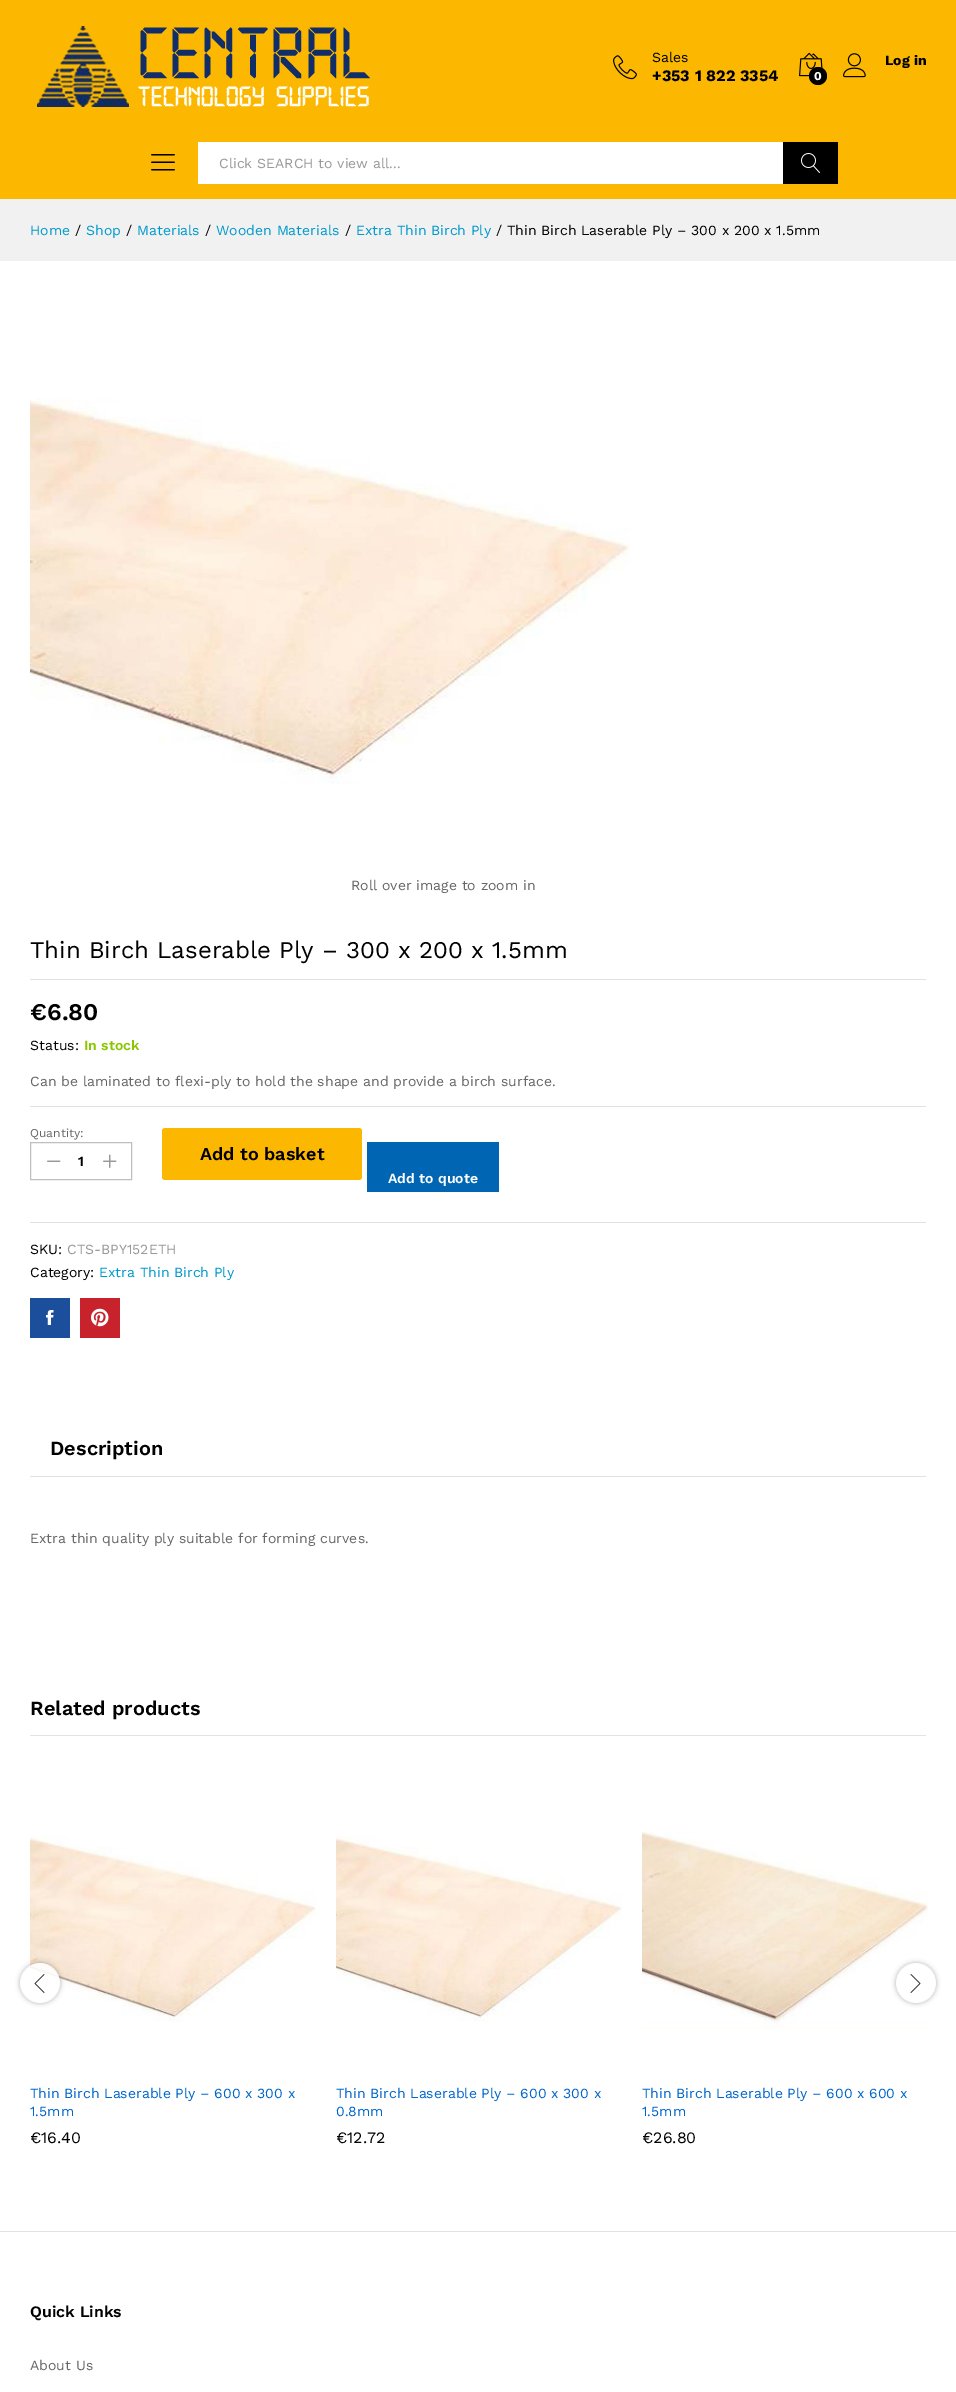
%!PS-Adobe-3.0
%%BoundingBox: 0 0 956 2392
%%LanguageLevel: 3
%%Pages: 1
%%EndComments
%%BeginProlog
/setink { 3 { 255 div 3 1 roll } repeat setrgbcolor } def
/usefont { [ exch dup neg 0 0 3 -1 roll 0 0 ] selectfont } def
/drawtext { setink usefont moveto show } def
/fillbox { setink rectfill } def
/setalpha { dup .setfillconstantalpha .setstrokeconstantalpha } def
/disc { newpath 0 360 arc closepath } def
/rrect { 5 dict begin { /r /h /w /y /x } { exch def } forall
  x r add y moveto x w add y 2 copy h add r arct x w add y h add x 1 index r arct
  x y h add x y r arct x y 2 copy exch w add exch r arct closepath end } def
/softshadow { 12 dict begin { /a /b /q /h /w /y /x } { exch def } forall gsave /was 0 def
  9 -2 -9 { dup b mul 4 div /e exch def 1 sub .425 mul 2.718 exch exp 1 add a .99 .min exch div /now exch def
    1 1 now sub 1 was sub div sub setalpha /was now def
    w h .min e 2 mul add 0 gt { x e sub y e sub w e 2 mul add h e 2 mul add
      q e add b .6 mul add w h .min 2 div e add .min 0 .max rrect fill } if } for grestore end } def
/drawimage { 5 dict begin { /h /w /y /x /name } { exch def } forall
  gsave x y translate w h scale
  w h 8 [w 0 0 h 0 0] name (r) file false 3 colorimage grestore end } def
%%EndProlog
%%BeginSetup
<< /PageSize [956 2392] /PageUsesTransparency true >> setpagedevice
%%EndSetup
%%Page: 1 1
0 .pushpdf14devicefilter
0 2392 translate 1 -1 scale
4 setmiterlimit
0 0 956 2392 255 255 255 fillbox
0 0 956 199 252 184 0 fillbox
(assets/img1.rgb) 37 26 333 81 drawimage
(assets/img2.rgb) 613 55 24 25 drawimage
(Sales) 652 62 /WorkSans-Regular 14 0 0 0 drawtext
(+353 1 822 3354) 652 81 /WorkSans-Bold 16 0 0 0 drawtext
(assets/img3.rgb) 843 53 23 25 drawimage
(Log in) 885 65 /WorkSans-Bold 14 0 0 0 drawtext
(assets/img4.rgb) 799 52 24 25 drawimage
818 76 9 disc fill
(0) 814 80 /WorkSans-Bold 12 255 255 255 drawtext
(assets/img5.rgb) 151 154 24 17 drawimage
198 142 585 42 255 255 255 fillbox
(Click SEARCH to view all...) 219 168 /WorkSans-Regular 14 153 153 153 drawtext
783 142 55 42 0 0 0 fillbox
(assets/img6.rgb) 801 153 19 20 drawimage
0 199 956 62 241 241 241 fillbox
(Home) 30 235 /WorkSans-Regular 14 0 153 204 drawtext
(/) 75 235 /WorkSans-Regular 14 0 0 0 drawtext
(Shop) 86 235 /WorkSans-Regular 14 0 153 204 drawtext
(/) 126 235 /WorkSans-Regular 14 0 0 0 drawtext
(Materials) 137 235 /WorkSans-Regular 14 0 153 204 drawtext
(/) 205 235 /WorkSans-Regular 14 0 0 0 drawtext
(Wooden Materials) 216 235 /WorkSans-Regular 14 0 153 204 drawtext
(/) 345 235 /WorkSans-Regular 14 0 0 0 drawtext
(Extra Thin Birch Ply) 356 235 /WorkSans-Regular 14 0 153 204 drawtext
(/ Thin Birch Laserable Ply – 300 x 200 x 1.5mm) 496 235 /WorkSans-Regular 14 0 0 0 drawtext
(assets/img7.rgb) 30 398 600 387 drawimage
(Roll over image to zoom in) 351 890 /WorkSans-Regular 14 102 102 102 drawtext
30 979 896 1 225 225 225 fillbox
(Thin Birch Laserable Ply – 300 x 200 x 1.5mm) 30 958 /WorkSans-Regular 24 0 0 0 drawtext
(€6.80) 30 1020 /WorkSans-SemiBold 24 0 0 0 drawtext
(Status:) 30 1050 /WorkSans-Regular 14 0 0 0 drawtext
(In stock) 84 1050 /WorkSans-SemiBold 14 139 197 0 drawtext
30 1106 896 1 225 225 225 fillbox
(Can be laminated to flexi-ply to hold the shape and provide a birch surface.) 30 1086 /WorkSans-Regular 14 102 102 102 drawtext
(Quantity:) 30 1137 /WorkSans-Regular 12 102 102 102 drawtext
191 191 191 setink
30.5 1142.5 101 37 rectstroke
(assets/img8.rgb) 47 1160 14 2 drawimage
(1) 78 1166 /WorkSans-SemiBold 14 0 0 0 drawtext
(assets/img9.rgb) 103 1154 14 14 drawimage
252 184 0 setink
162 1128 200 52 3 rrect fill
(Add to basket) 200 1160 /WorkSans-SemiBold 18 0 0 0 drawtext
367 1142 132 50 0 102 180 fillbox
(Add to quote) 388 1183 /WorkSans-SemiBold 14 255 255 255 drawtext
30 1222 896 1 225 225 225 fillbox
(SKU:) 30 1254 /WorkSans-Regular 14 0 0 0 drawtext
(CTS-BPY152ETH) 67 1254 /WorkSans-Regular 14 153 153 153 drawtext
(Category:) 30 1277 /WorkSans-Regular 14 0 0 0 drawtext
(Extra Thin Birch Ply) 99 1277 /WorkSans-Regular 14 0 153 204 drawtext
30 1298 40 40 27 78 155 fillbox
(assets/img10.rgb) 46 1310 8 15 drawimage
80 1298 40 40 200 35 44 fillbox
(assets/img11.rgb) 91 1308 18 19 drawimage
30 1476 896 1 225 225 225 fillbox
(Description) 50 1455 /WorkSans-SemiBold 20 0 0 0 drawtext
(Extra thin quality ply suitable for forming curves.) 30 1543 /WorkSans-Regular 14 102 102 102 drawtext
30 1735 896 1 227 227 227 fillbox
(Related products) 30 1715 /WorkSans-SemiBold 20 0 0 0 drawtext
(assets/img14.rgb) 30 1836 286 186 drawimage
gsave
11 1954 moveto 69 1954 lineto 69 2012 lineto 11 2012 lineto closepath 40 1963 moveto 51 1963 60 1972 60 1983 curveto 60 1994 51 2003 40 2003 curveto 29 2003 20 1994 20 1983 curveto 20 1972 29 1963 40 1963 curveto closepath eoclip newpath
20 1963 40 40 20 2.5 0.3 softshadow
grestore
0.9 setalpha
255 255 255 setink
40 1983 20 disc fill
1 setalpha
(assets/img12.rgb) 34 1974 11 19 drawimage
(assets/img15.rgb) 642 1831 286 199 drawimage
gsave
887 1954 moveto 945 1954 lineto 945 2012 lineto 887 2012 lineto closepath 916 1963 moveto 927 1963 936 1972 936 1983 curveto 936 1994 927 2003 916 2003 curveto 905 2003 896 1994 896 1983 curveto 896 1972 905 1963 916 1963 curveto closepath eoclip newpath
0 0 0 setink
896 1963 40 40 20 2.5 0.3 softshadow
grestore
0.9 setalpha
916 1983 20 disc fill
1 setalpha
(assets/img13.rgb) 910 1974 11 19 drawimage
(Thin Birch Laserable Ply – 600 x 300 x) 30 2098 /WorkSans-Regular 14 0 102 204 drawtext
(1.5mm) 30 2116 /WorkSans-Regular 14 0 102 204 drawtext
(€16.40) 30 2143 /WorkSans-Regular 16 0 0 0 drawtext
(assets/img14.rgb) 336 1836 286 186 drawimage
(Thin Birch Laserable Ply – 600 x 300 x) 336 2098 /WorkSans-Regular 14 0 102 204 drawtext
(0.8mm) 336 2116 /WorkSans-Regular 14 0 102 204 drawtext
(€12.72) 336 2143 /WorkSans-Regular 16 0 0 0 drawtext
(Thin Birch Laserable Ply – 600 x 600 x) 642 2098 /WorkSans-Regular 14 0 102 204 drawtext
(1.5mm) 642 2116 /WorkSans-Regular 14 0 102 204 drawtext
(€26.80) 642 2143 /WorkSans-Regular 16 0 0 0 drawtext
0 2231 956 1 225 225 225 fillbox
(Quick Links) 30 2317 /WorkSans-SemiBold 16 0 0 0 drawtext
(About Us) 30 2370 /WorkSans-Regular 14 102 102 102 drawtext
.poppdf14devicefilter showpage
%%EOF
